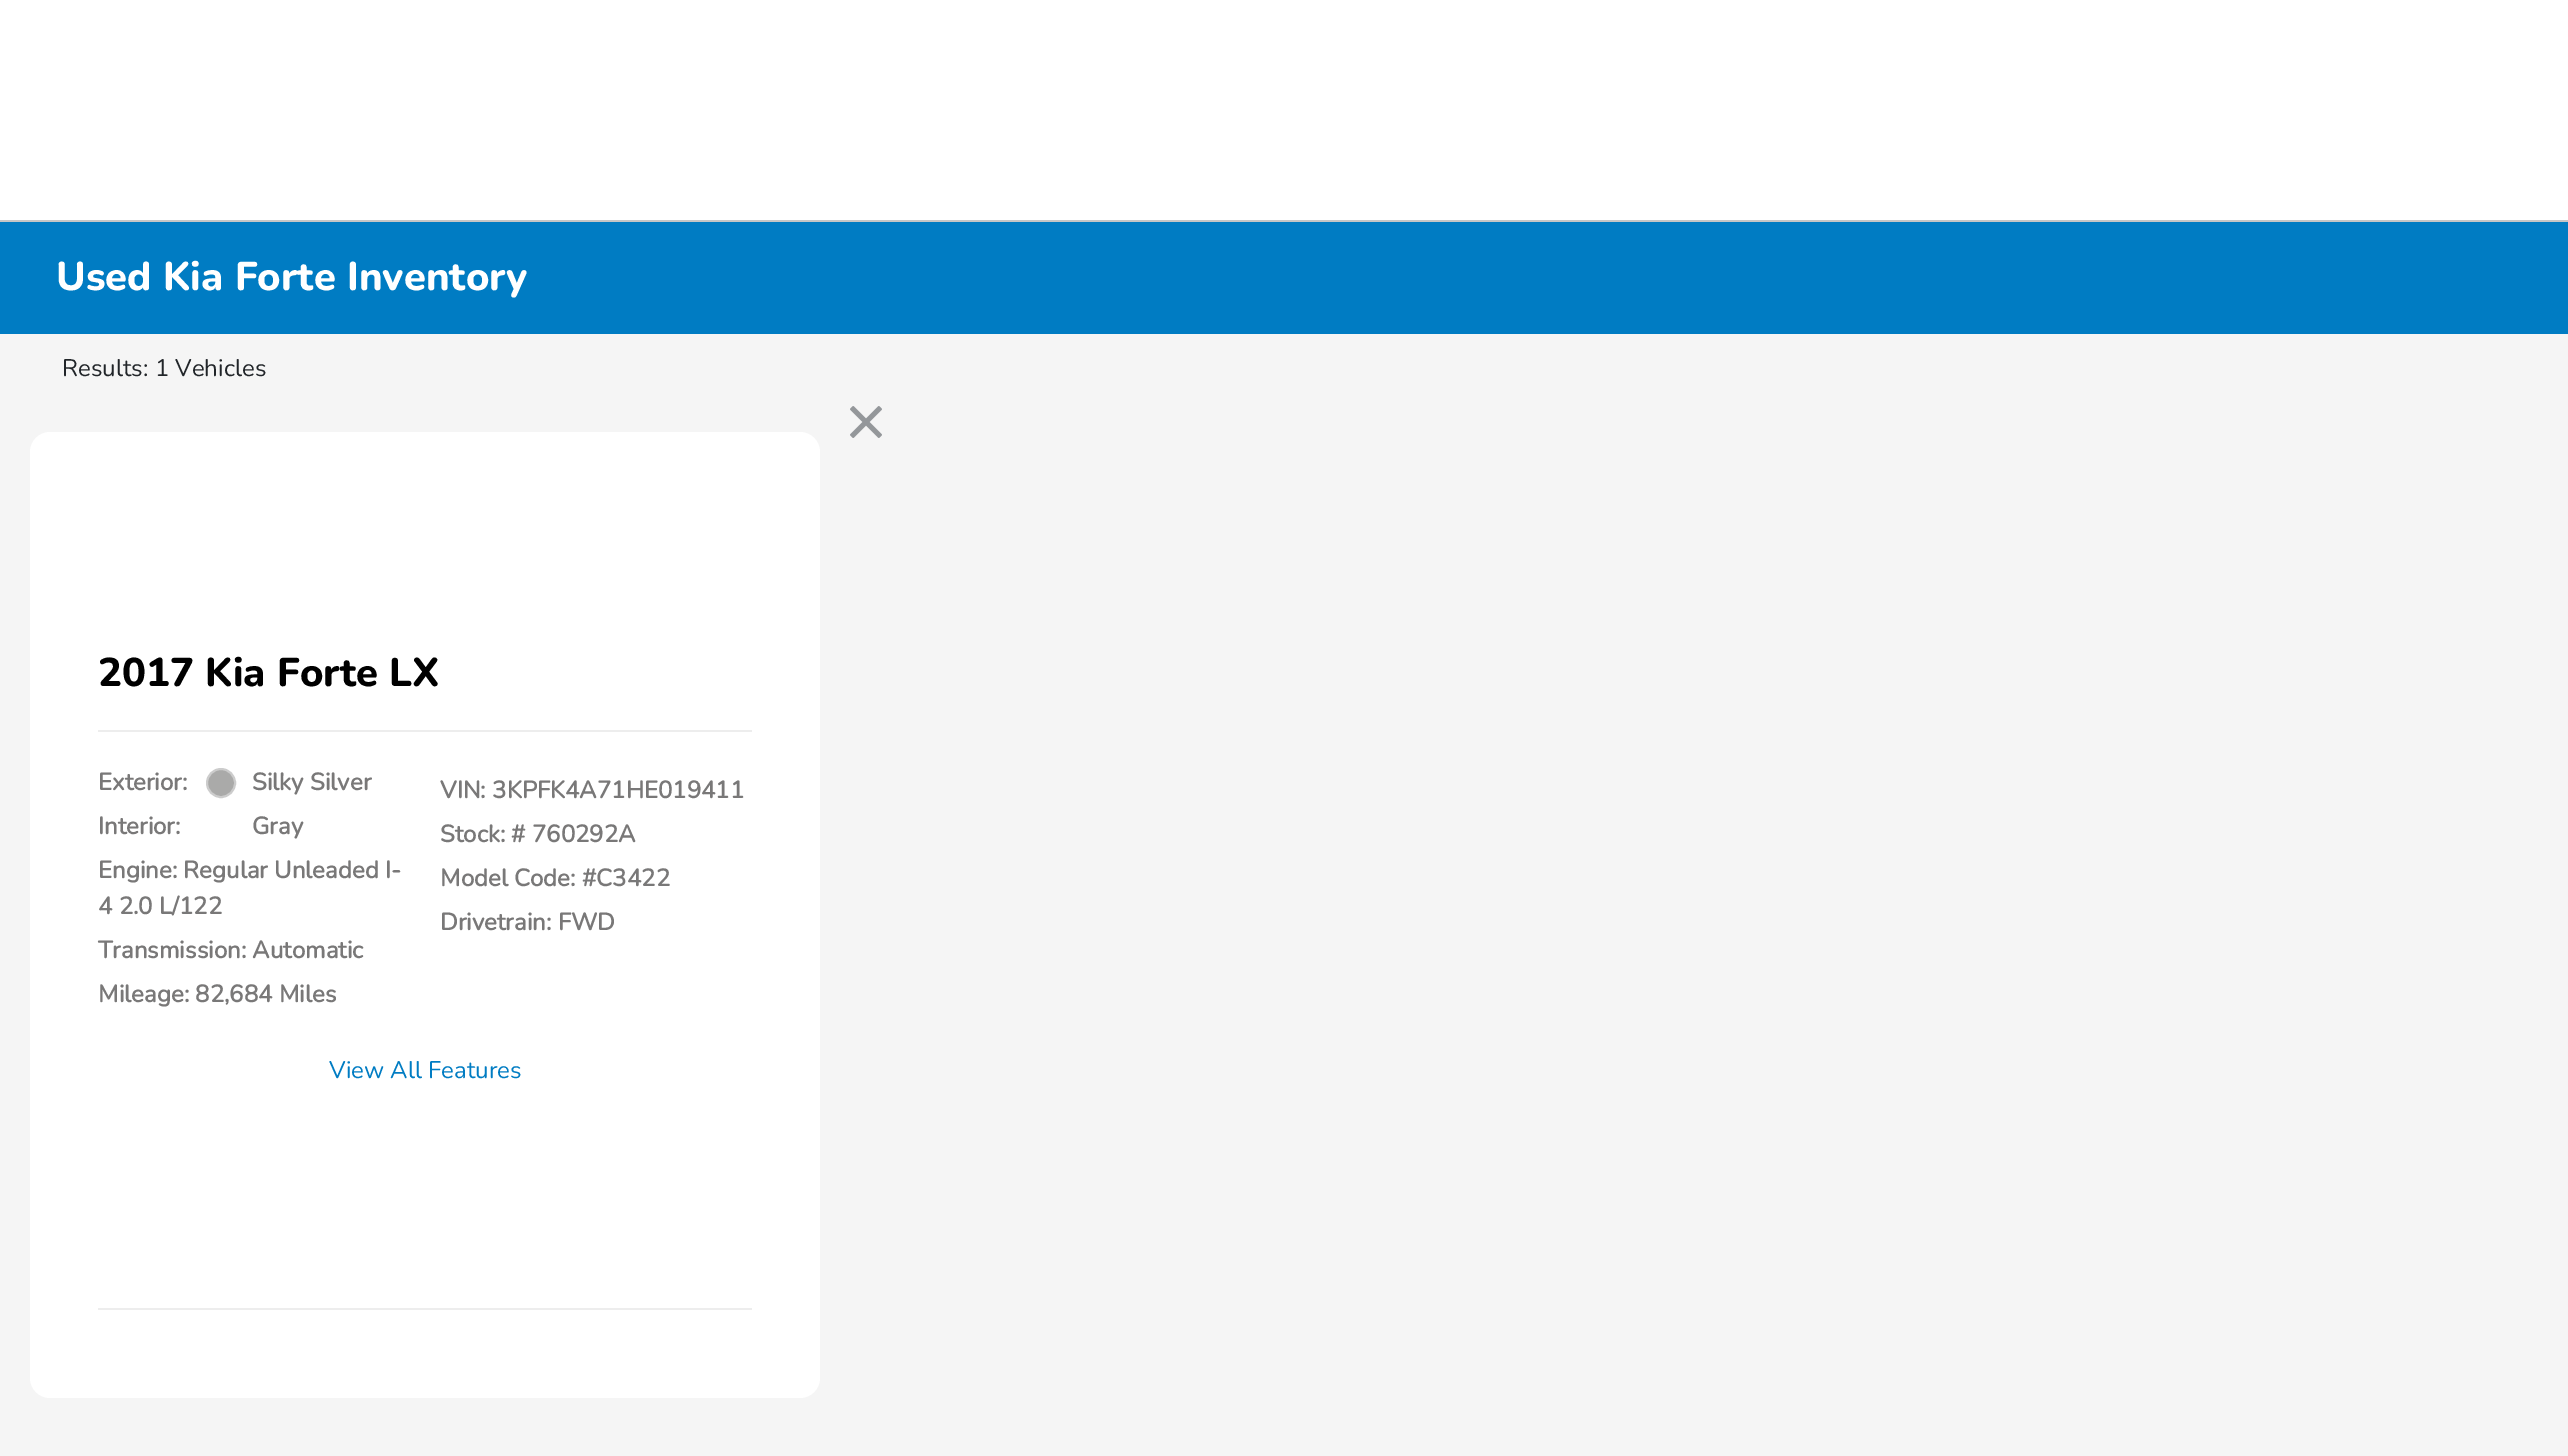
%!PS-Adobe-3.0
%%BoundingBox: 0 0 2568 1456
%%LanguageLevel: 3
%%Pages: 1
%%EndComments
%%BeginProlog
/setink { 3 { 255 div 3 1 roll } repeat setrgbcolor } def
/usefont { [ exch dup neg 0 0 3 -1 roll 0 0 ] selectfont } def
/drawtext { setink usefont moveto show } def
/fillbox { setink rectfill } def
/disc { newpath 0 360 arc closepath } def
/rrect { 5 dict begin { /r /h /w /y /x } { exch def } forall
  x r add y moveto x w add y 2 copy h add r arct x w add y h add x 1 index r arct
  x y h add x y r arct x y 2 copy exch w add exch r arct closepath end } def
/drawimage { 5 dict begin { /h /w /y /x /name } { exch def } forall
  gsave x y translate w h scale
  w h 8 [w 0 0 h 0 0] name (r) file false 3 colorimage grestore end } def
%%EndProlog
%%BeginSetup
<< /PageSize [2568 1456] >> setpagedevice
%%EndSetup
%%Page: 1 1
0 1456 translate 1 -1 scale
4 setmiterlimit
0 0 2568 1456 255 255 255 fillbox
0 334 2568 1122 245 245 245 fillbox
0 222 2568 112 0 124 195 fillbox
0 220 2568 2 198 198 198 fillbox
(Used Kia Forte Inventory) 56 290 /Nunito-ExtraBold 40 255 255 255 drawtext
(Results: 1 Vehicles) 62 376 /Nunito-Regular 24 33 37 41 drawtext
(assets/img1.rgb) 850 406 32 32 drawimage
255 255 255 setink
30 432 790 966 20 rrect fill
(2017 Kia Forte LX) 98 686 /Nunito-ExtraBold 40 0 0 0 drawtext
98 730 654 2 237 237 237 fillbox
(Exterior:) 98 790 /Nunito-Bold 24 121 120 120 drawtext
170 170 169 setink
221 783 14 disc gsave fill grestore
204 204 204 setink
2 setlinewidth
stroke
(Silky Silver) 252 790 /Nunito-Bold 24 121 120 120 drawtext
(Interior:) 98 834 /Nunito-Bold 24 121 120 120 drawtext
(Gray) 252 834 /Nunito-Bold 24 121 120 120 drawtext
(Engine: Regular Unleaded I-) 98 878 /Nunito-Bold 24 121 120 120 drawtext
(4 2.0 L/122) 98 914 /Nunito-Bold 24 121 120 120 drawtext
(Transmission: Automatic) 98 958 /Nunito-Bold 24 121 120 120 drawtext
(Mileage: 82,684 Miles) 98 1002 /Nunito-Bold 24 121 120 120 drawtext
(VIN: 3KPFK4A71HE019411) 440 798 /Nunito-Bold 24 121 120 120 drawtext
(Stock: # 760292A) 440 842 /Nunito-Bold 24 121 120 120 drawtext
(Model Code: #C3422) 440 886 /Nunito-Bold 24 121 120 120 drawtext
(Drivetrain: FWD) 440 930 /Nunito-Bold 24 121 120 120 drawtext
(View All Features) 329 1078 /Nunito-Regular 24 0 124 195 drawtext
98 1308 654 2 237 237 237 fillbox
showpage
%%EOF
